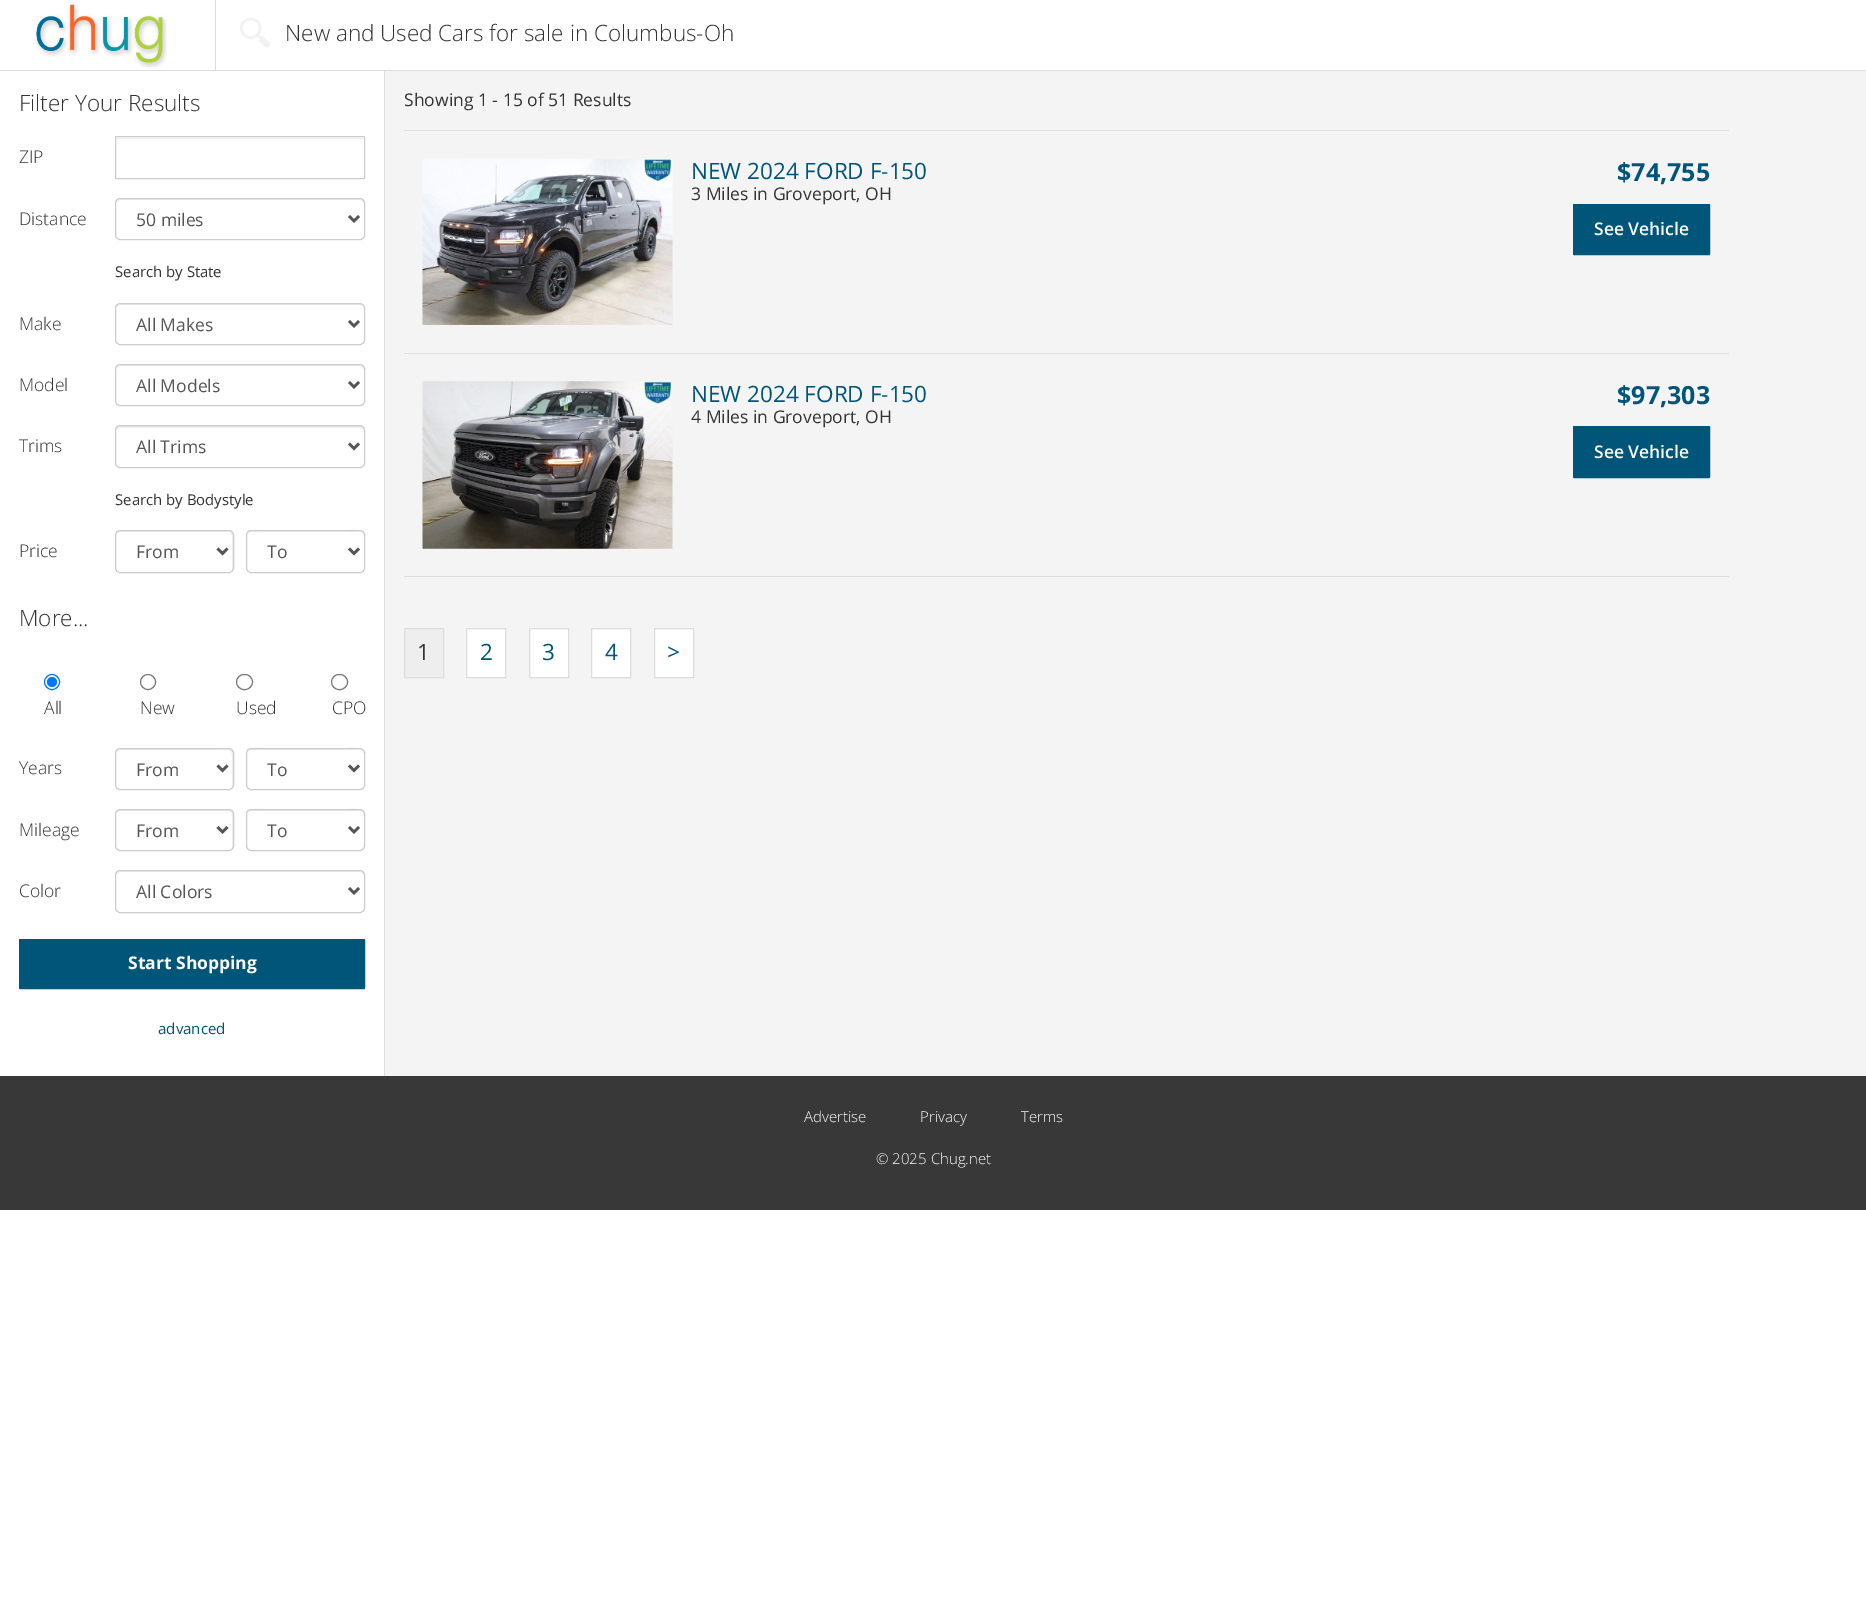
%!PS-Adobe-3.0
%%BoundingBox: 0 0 1866 1599
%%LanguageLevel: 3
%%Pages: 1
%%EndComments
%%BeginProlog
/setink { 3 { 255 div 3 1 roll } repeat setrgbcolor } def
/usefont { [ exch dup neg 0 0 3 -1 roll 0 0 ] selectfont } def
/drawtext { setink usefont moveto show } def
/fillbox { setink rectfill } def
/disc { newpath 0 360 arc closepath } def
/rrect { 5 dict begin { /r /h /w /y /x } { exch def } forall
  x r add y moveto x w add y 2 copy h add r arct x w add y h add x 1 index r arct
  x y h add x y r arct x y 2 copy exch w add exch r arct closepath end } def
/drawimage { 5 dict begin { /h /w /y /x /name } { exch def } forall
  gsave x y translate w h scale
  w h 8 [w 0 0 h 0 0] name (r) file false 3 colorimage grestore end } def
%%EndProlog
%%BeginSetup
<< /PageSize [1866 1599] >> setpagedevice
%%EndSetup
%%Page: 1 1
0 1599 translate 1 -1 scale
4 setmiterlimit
0 0 1866 1599 255 255 255 fillbox
385 71 1481 1005 244 244 244 fillbox
0 70 1866 1 221 221 221 fillbox
(assets/img1.rgb) 35 4 132 64 drawimage
215 0 1 70 221 221 221 fillbox
(assets/img2.rgb) 240 17 30 31 drawimage
(New and Used Cars for sale in Columbus-Oh) 285 41 /OpenSans-Light 22.5 51 51 51 drawtext
384 71 1 1005 223 223 223 fillbox
(Filter Your Results) 19 111 /OpenSans-Light 22.5 51 51 51 drawtext
(ZIP) 19 163 /OpenSans-Light 17.5 51 51 51 drawtext
116 138 248 1 236 236 236 fillbox
204 204 204 setink
115.5 136.5 249 42 0.5 rrect stroke
(Distance) 19 225 /OpenSans-Light 17.5 51 51 51 drawtext
236 236 236 setink
120 200 moveto 360 200 lineto 362 200 364 202 364 204 curveto 364 203 lineto 364 201 362 199 360 199 curveto 120 199 lineto 118 199 116 201 116 203 curveto 116 204 lineto 116 202 118 200 120 200 curveto closepath fill
204 204 204 setink
115.5 198.5 249 41 4.5 rrect stroke
85 85 85 setink
2.5 setlinewidth
349 216 moveto 354 221 lineto 359 216 lineto stroke
(50 miles) 136 226 /OpenSans-Regular 17.5 85 85 85 drawtext
(Search by State) 115 277 /OpenSans-Regular 14.9 51 51 51 drawtext
(Make) 19 330 /OpenSans-Light 17.5 51 51 51 drawtext
236 236 236 setink
120 305 moveto 360 305 lineto 362 305 364 307 364 309 curveto 364 308 lineto 364 306 362 304 360 304 curveto 120 304 lineto 118 304 116 306 116 308 curveto 116 309 lineto 116 307 118 305 120 305 curveto closepath fill
204 204 204 setink
1 setlinewidth
115.5 303.5 249 41 4.5 rrect stroke
85 85 85 setink
2.5 setlinewidth
349 321 moveto 354 326 lineto 359 321 lineto stroke
(All Makes) 136 331 /OpenSans-Regular 17.5 85 85 85 drawtext
(Model) 19 391 /OpenSans-Light 17.5 51 51 51 drawtext
236 236 236 setink
120 366 moveto 360 366 lineto 362 366 364 368 364 370 curveto 364 369 lineto 364 367 362 365 360 365 curveto 120 365 lineto 118 365 116 367 116 369 curveto 116 370 lineto 116 368 118 366 120 366 curveto closepath fill
204 204 204 setink
1 setlinewidth
115.5 364.5 249 41 4.5 rrect stroke
85 85 85 setink
2.5 setlinewidth
349 382 moveto 354 387 lineto 359 382 lineto stroke
(All Models) 136 392 /OpenSans-Regular 17.5 85 85 85 drawtext
(Trims) 19 452 /OpenSans-Light 17.5 51 51 51 drawtext
236 236 236 setink
120 428 moveto 360 428 lineto 362 428 364 429 364 431 curveto 364 430 lineto 364 428 362 426 360 426 curveto 120 426 lineto 118 426 116 428 116 430 curveto 116 431 lineto 116 429 118 428 120 428 curveto closepath fill
204 204 204 setink
1 setlinewidth
115.5 425.5 249 42 4.5 rrect stroke
85 85 85 setink
2.5 setlinewidth
349 443.5 moveto 354 448.5 lineto 359 443.5 lineto stroke
(All Trims) 136 453 /OpenSans-Regular 17.5 85 85 85 drawtext
(Search by Bodystyle) 115 505 /OpenSans-Regular 14.9 51 51 51 drawtext
(Price) 19 557 /OpenSans-Light 17.5 51 51 51 drawtext
236 236 236 setink
120 532 moveto 229 532 lineto 233 532 232 540 232 542 curveto 232 570 lineto 233 569 233 568 233 567 curveto 233 535 lineto 233 533 231 531 229 531 curveto 120 531 lineto 118 531 116 533 116 535 curveto 116 536 lineto 116 534 118 532 120 532 curveto closepath fill
204 204 204 setink
1 setlinewidth
115.5 530.5 118 42 4.5 rrect stroke
85 85 85 setink
2.5 setlinewidth
217.5 548.5 moveto 222.5 553.5 lineto 227.5 548.5 lineto stroke
(From) 136 558 /OpenSans-Regular 17.5 85 85 85 drawtext
236 236 236 setink
251 532 moveto 360 532 lineto 362 532 364 534 364 536 curveto 364 526 345 531 342 531 curveto 270 531 lineto 267 531 248 526 248 536 curveto 248 534 249 532 251 532 curveto closepath fill
204 204 204 setink
1 setlinewidth
246.5 530.5 118 42 4.5 rrect stroke
85 85 85 setink
2.5 setlinewidth
349 548.5 moveto 354 553.5 lineto 359 548.5 lineto stroke
(To) 267 558 /OpenSans-Regular 17.5 85 85 85 drawtext
(More...) 19 626 /OpenSans-Light 22.5 51 51 51 drawtext
0 117 255 setink
1 setlinewidth
52 682 7.5 disc stroke
52 682 5 disc fill
(All) 44 714 /OpenSans-Light 17.5 51 51 51 drawtext
118 118 118 setink
148 682 7.5 disc stroke
(New) 140 714 /OpenSans-Light 17.5 51 51 51 drawtext
118 118 118 setink
236.5 674.5 16 15 7.5 rrect stroke
(Used) 236 714 /OpenSans-Light 17.5 51 51 51 drawtext
118 118 118 setink
331.5 674.5 16 15 7.5 rrect stroke
(CPO) 332 714 /OpenSans-Light 17.5 51 51 51 drawtext
(Years) 19 774 /OpenSans-Light 17.5 51 51 51 drawtext
236 236 236 setink
120 750 moveto 211 750 lineto 234 750 232 746 232 765 curveto 232 788 lineto 232 787 233 786 233 785 curveto 233 753 lineto 233 751 231 749 229 749 curveto 120 749 lineto 118 749 116 751 116 753 curveto 116 754 lineto 116 752 118 750 120 750 curveto closepath fill
204 204 204 setink
115.5 748.5 118 41 4.5 rrect stroke
85 85 85 setink
2.5 setlinewidth
217.5 765.5 moveto 222.5 770.5 lineto 227.5 765.5 lineto stroke
(From) 136 776 /OpenSans-Regular 17.5 85 85 85 drawtext
236 236 236 setink
251 750 moveto 360 750 lineto 362 750 364 752 364 754 curveto 364 744 345 749 342 749 curveto 270 749 lineto 267 749 248 744 248 754 curveto 248 752 249 750 251 750 curveto closepath fill
204 204 204 setink
1 setlinewidth
246.5 748.5 118 41 4.5 rrect stroke
85 85 85 setink
2.5 setlinewidth
349 765.5 moveto 354 770.5 lineto 359 765.5 lineto stroke
(To) 267 776 /OpenSans-Regular 17.5 85 85 85 drawtext
(Mileage) 19 836 /OpenSans-Light 17.5 51 51 51 drawtext
236 236 236 setink
120 811 moveto 229 811 lineto 233 811 232 819 232 820 curveto 232 849 lineto 233 848 233 847 233 846 curveto 233 814 lineto 233 812 231 810 229 810 curveto 120 810 lineto 118 810 116 812 116 814 curveto 116 815 lineto 116 813 118 811 120 811 curveto closepath fill
204 204 204 setink
1 setlinewidth
115.5 809.5 118 41 4.5 rrect stroke
85 85 85 setink
2.5 setlinewidth
217.5 827 moveto 222.5 832 lineto 227.5 827 lineto stroke
(From) 136 837 /OpenSans-Regular 17.5 85 85 85 drawtext
236 236 236 setink
251 811 moveto 360 811 lineto 362 811 364 813 364 815 curveto 364 805 345 810 342 810 curveto 270 810 lineto 267 810 248 805 248 815 curveto 248 813 249 811 251 811 curveto closepath fill
204 204 204 setink
1 setlinewidth
246.5 809.5 118 41 4.5 rrect stroke
85 85 85 setink
2.5 setlinewidth
349 827 moveto 354 832 lineto 359 827 lineto stroke
(To) 267 837 /OpenSans-Regular 17.5 85 85 85 drawtext
(Color) 19 897 /OpenSans-Light 17.5 51 51 51 drawtext
236 236 236 setink
120 872 moveto 360 872 lineto 362 872 364 874 364 876 curveto 364 875 lineto 364 873 362 871 360 871 curveto 120 871 lineto 118 871 116 873 116 875 curveto 116 876 lineto 116 874 118 872 120 872 curveto closepath fill
204 204 204 setink
1 setlinewidth
115.5 870.5 249 42 4.5 rrect stroke
85 85 85 setink
2.5 setlinewidth
349 888 moveto 354 893 lineto 359 888 lineto stroke
(All Colors) 136 898 /OpenSans-Regular 17.5 85 85 85 drawtext
0 85 120 setink
19.5 939.5 345 49 0.5 rrect gsave fill grestore
1 setlinewidth
stroke
(Start Shopping) 128 969 /OpenSans-Bold 17.5 255 255 255 drawtext
(advanced) 158 1034 /OpenSans-Regular 15 0 85 120 drawtext
404 130 1325 1 223 223 223 fillbox
(Showing 1 - 15 of 51 Results) 404 106 /OpenSans-Regular 17.5 51 51 51 drawtext
404 353 1325 1 223 223 223 fillbox
(assets/img3.rgb) 422 158 251 167 drawimage
(NEW 2024 FORD F-150) 691 179 /OpenSans-Regular 22.5 0 85 120 drawtext
(3 Miles in Groveport, OH) 691 200 /OpenSans-Regular 17.5 51 51 51 drawtext
($74,755) 1617 181 /OpenSans-Bold 25 0 85 120 drawtext
1573.5 204.5 136 50 0.5 rrect gsave fill grestore
stroke
(See Vehicle) 1594 235 /OpenSans-SemiBold 17.5 255 255 255 drawtext
404 576 1325 1 223 223 223 fillbox
(assets/img4.rgb) 422 381 251 168 drawimage
(NEW 2024 FORD F-150) 691 402 /OpenSans-Regular 22.5 0 85 120 drawtext
(4 Miles in Groveport, OH) 691 423 /OpenSans-Regular 17.5 51 51 51 drawtext
($97,303) 1617 404 /OpenSans-Bold 25 0 85 120 drawtext
1573.5 426.5 136 51 0.5 rrect gsave fill grestore
stroke
(See Vehicle) 1594 458 /OpenSans-SemiBold 17.5 255 255 255 drawtext
238 238 238 setink
404.5 628.5 moveto 443.5 628.5 lineto 443.5 677.5 lineto 404.5 677.5 lineto closepath gsave fill grestore
221 221 221 setink
stroke
(1) 417 660 /OpenSans-Regular 22.5 51 51 51 drawtext
255 255 255 setink
466.5 628.5 moveto 505.5 628.5 lineto 505.5 677.5 lineto 466.5 677.5 lineto closepath gsave fill grestore
221 221 221 setink
stroke
(2) 480 660 /OpenSans-Regular 22.5 0 85 120 drawtext
255 255 255 setink
529.5 628.5 moveto 568.5 628.5 lineto 568.5 677.5 lineto 529.5 677.5 lineto closepath gsave fill grestore
221 221 221 setink
stroke
(3) 542 660 /OpenSans-Regular 22.5 0 85 120 drawtext
255 255 255 setink
591.5 628.5 moveto 630.5 628.5 lineto 630.5 677.5 lineto 591.5 677.5 lineto closepath gsave fill grestore
221 221 221 setink
stroke
(4) 605 660 /OpenSans-Regular 22.5 0 85 120 drawtext
255 255 255 setink
654.5 628.5 moveto 693.5 628.5 lineto 693.5 677.5 lineto 654.5 677.5 lineto closepath gsave fill grestore
221 221 221 setink
stroke
(>) 667 660 /OpenSans-Regular 22.5 0 85 120 drawtext
0 1076 1866 134 56 56 56 fillbox
(Advertise) 804 1122 /OpenSans-Light 15 255 255 255 drawtext
(Privacy) 920 1122 /OpenSans-Light 15 255 255 255 drawtext
(Terms) 1021 1122 /OpenSans-Light 15 255 255 255 drawtext
(© 2025 Chug.net) 876 1164 /OpenSans-Light 15 255 255 255 drawtext
showpage
%%EOF
